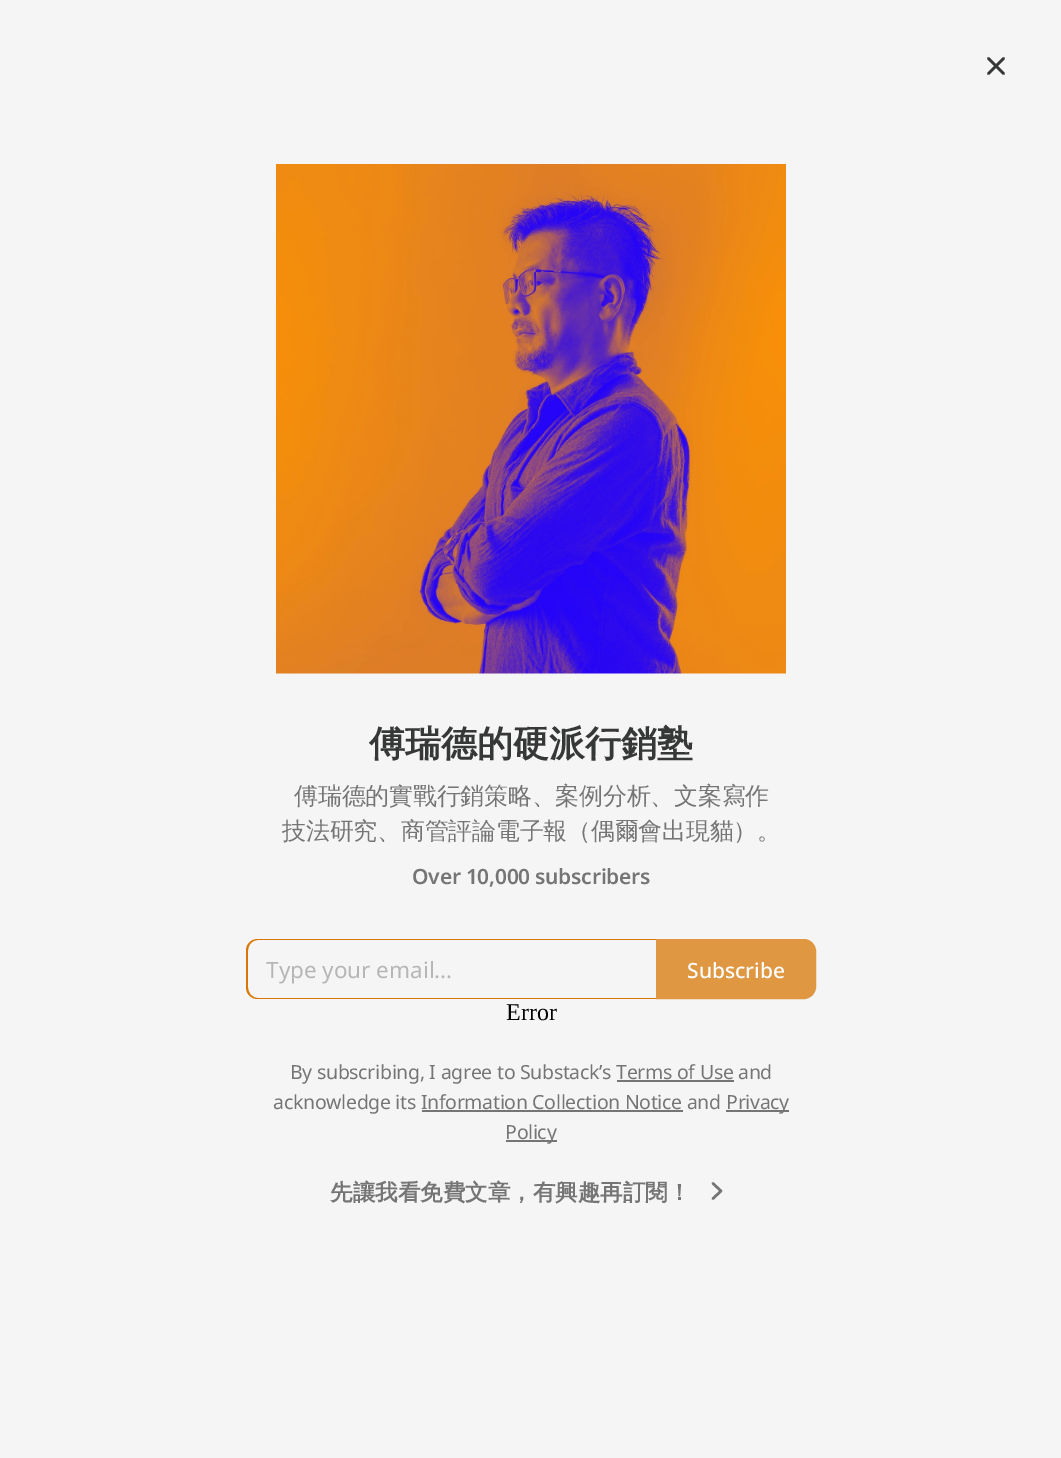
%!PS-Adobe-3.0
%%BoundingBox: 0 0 1061 1458
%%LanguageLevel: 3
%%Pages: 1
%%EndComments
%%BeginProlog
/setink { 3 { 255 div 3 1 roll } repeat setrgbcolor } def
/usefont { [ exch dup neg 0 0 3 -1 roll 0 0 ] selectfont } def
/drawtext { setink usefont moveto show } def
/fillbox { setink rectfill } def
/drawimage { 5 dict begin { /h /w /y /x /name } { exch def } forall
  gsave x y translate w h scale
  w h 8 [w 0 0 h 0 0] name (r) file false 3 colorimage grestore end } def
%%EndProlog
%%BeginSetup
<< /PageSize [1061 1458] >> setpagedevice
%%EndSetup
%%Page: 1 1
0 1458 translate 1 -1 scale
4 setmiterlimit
0 0 1061 1458 245 245 245 fillbox
54 55 55 setink
2.5 setlinewidth
1 setlinecap
1 setlinejoin
1003.5 58.5 moveto 988.5 73.5 lineto 988.5 58.5 moveto 1003.5 73.5 lineto stroke
(assets/img1.rgb) 276 164 510 510 drawimage
(傅瑞德的硬派行銷塾) 369 756 /WenQuanYiZenHei-Bold 36 54 55 55 drawtext
/WenQuanYiZenHei-Medium 24 usefont
117 117 117 setink
294 804 moveto -0.25 0 (傅瑞德的實戰行銷策略、案例分析、文案寫作) ashow
282 839 moveto -0.25 0 (技法研究、商管評論電子報（偶爾會出現貓）。) ashow
/NotoSans-SemiBold 21 usefont
412 884 moveto -0.25 0 (Over 10,000 subscribers) ashow
217 119 6 setink
258 939 moveto 656 939 lineto 656 999 lineto 258 999 lineto 251 999 246 994 246 987 curveto 246 951 lineto 246 944 251 939 258 939 curveto closepath 258 940 moveto 656 940 lineto 656 998 lineto 258 998 lineto 252 998 248 993 248 987 curveto 248 951 lineto 248 945 252 940 258 940 curveto closepath eofill
(Type your email...) 266 978 /NotoSans-Regular 22.5 182 182 182 drawtext
224 151 66 setink
657 940 moveto 804 940 lineto 810 940 815 945 815 951 curveto 815 987 lineto 815 993 810 998 804 998 curveto 657 998 lineto closepath gsave fill grestore
2 setlinewidth
0 setlinecap
0 setlinejoin
stroke
(Subscribe) 687 978 /NotoSans-Medium 21 253 253 253 drawtext
(Error) 506 1020 /LiberationSerif-Regular 24 0 0 0 drawtext
/NotoSans-Regular 19.5 usefont
117 117 117 setink
290 1079 moveto -0.3 0 (By subscribing, I agree to Substack’s Terms of Use and) ashow
617 1080 117 2 117 117 117 fillbox
273 1109 moveto -0.3 0 (acknowledge its Information Collection Notice and) ashow
726 1110 63 2 117 117 117 fillbox
726 1109 moveto -0.3 0 (Privacy) ashow
422 1110 261 2 117 117 117 fillbox
506 1140 51 2 117 117 117 fillbox
505 1139 moveto -0.3 0 (Policy) ashow
(先讓我看免費文章，有興趣再訂閱！) 330 1200 /WenQuanYiZenHei-Bold 22.5 117 117 117 drawtext
2.5 setlinewidth
1 setlinecap
1 setlinejoin
713 1198.5 moveto 721 1191 lineto 713 1183.5 lineto stroke
showpage
%%EOF
